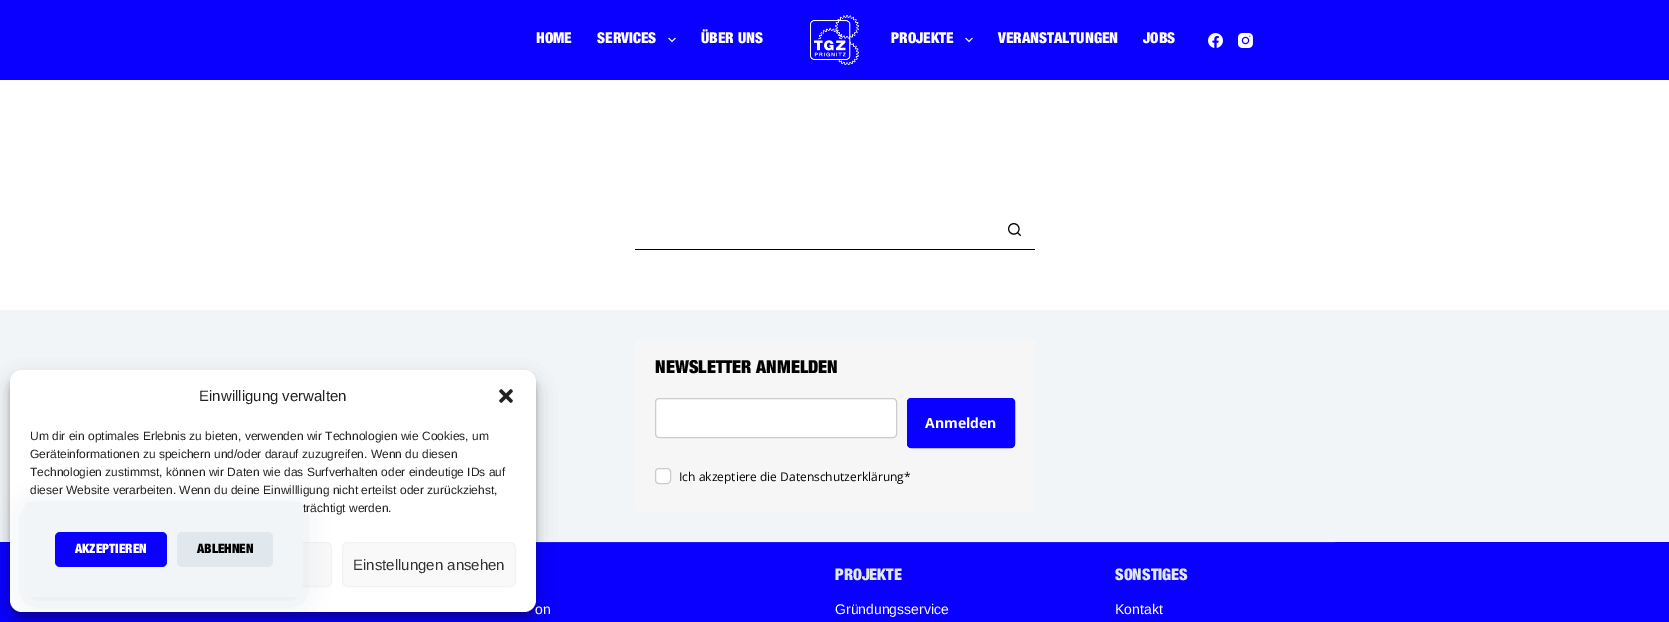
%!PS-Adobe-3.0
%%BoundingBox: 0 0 1669 622
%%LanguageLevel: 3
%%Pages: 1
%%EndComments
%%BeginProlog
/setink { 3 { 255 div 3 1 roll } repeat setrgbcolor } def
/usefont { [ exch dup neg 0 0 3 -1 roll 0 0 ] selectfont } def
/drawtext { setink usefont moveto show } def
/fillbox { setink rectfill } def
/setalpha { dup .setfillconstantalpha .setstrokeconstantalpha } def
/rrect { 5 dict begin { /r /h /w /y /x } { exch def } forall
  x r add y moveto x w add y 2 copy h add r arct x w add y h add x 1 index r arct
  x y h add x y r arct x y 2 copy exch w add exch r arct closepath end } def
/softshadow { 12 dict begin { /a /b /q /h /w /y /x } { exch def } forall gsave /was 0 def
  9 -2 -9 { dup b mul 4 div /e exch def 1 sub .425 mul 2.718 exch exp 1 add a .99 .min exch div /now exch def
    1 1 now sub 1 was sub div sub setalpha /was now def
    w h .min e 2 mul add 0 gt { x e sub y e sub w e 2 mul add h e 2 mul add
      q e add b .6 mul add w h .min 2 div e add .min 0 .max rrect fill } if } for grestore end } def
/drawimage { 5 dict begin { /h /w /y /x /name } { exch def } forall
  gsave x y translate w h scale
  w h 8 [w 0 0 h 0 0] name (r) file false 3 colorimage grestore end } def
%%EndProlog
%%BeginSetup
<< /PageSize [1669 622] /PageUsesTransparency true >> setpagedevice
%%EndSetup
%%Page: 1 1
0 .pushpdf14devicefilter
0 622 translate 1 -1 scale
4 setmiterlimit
0 0 1669 622 255 255 255 fillbox
0 542 1669 80 9 0 255 fillbox
0 310 1669 232 242 245 247 fillbox
536 542 799 1 34 26 255 fillbox
0 0 0 setink
10 376 526 242 12 3 0.23 softshadow
10 380 526 242 12 10 0.19 softshadow
255 255 255 setink
10 370 526 242 12 rrect fill
(Einwilligung verwalten) 199 401 /LiberationSans-Regular 15 34 34 34 drawtext
(assets/img1.rgb) 499 389 14 14 drawimage
(Um dir ein optimales Erlebnis zu bieten, verwenden wir Technologien wie Cookies, um) 30 440 /LiberationSans-Regular 12 34 34 34 drawtext
(Geräteinformationen zu speichern und/oder darauf zuzugreifen. Wenn du diesen) 30 458 /LiberationSans-Regular 12 34 34 34 drawtext
(Technologien zustimmst, können wir Daten wie das Surfverhalten oder eindeutige IDs auf) 30 476 /LiberationSans-Regular 12 34 34 34 drawtext
(dieser Website verarbeiten. Wenn du deine Einwillligung nicht erteilst oder zurückziehst,) 30 494 /LiberationSans-Regular 12 34 34 34 drawtext
(trächtigt werden.) 303 512 /LiberationSans-Regular 12 34 34 34 drawtext
249 249 249 setink
186.5 542.5 145 44 5.5 rrect gsave fill grestore
242 242 242 setink
stroke
249 249 249 setink
342.5 542.5 173 44 5.5 rrect gsave fill grestore
242 242 242 setink
stroke
(Einstellungen ansehen) 353 570 /LiberationSans-Regular 15 51 51 51 drawtext
0 0 1669 80 9 0 255 fillbox
(HOME) 536 43 /HelveticaNeue-Black 15 255 255 255 drawtext
(SERVICES) 597 43 /HelveticaNeue-Black 15 255 255 255 drawtext
(assets/img2.rgb) 668 37 8 6 drawimage
(ÜBER UNS) 701 43 /HelveticaNeue-Black 15 255 255 255 drawtext
(assets/img3.rgb) 810 15 49 50 drawimage
(PROJEKTE) 891 43 /HelveticaNeue-Black 15 255 255 255 drawtext
(assets/img2.rgb) 965 37 8 6 drawimage
(VERANSTALTUNGEN) 998 43 /HelveticaNeue-Black 15 255 255 255 drawtext
(JOBS) 1143 43 /HelveticaNeue-Black 15 255 255 255 drawtext
(assets/img4.rgb) 1208 33 15 15 drawimage
(assets/img5.rgb) 1238 33 15 15 drawimage
(assets/img6.rgb) 1008 223 13 13 drawimage
635 249 400 1 0 0 0 fillbox
246 246 246 setink
635 340 400 172 4 rrect fill
(NEWSLETTER ANMELDEN) 655 373 /HelveticaNeue-Black 18 0 0 0 drawtext
255 255 255 setink
655.5 398.5 241 39 3.5 rrect gsave fill grestore
204 204 204 setink
stroke
9 0 255 setink
907.5 398.5 107 49 3.5 rrect gsave fill grestore
stroke
(Anmelden) 925 428 /OpenSans-Bold 14 255 255 255 drawtext
655.5 468.5 15 15 3.5 rrect gsave fill grestore
204 204 204 setink
stroke
(Ich akzeptiere die Datenschutzerklärung*) 679 481 /OpenSans-Regular 12 0 0 0 drawtext
(on) 535 614 /LiberationSans-Regular 14 255 255 255 drawtext
(PROJEKTE) 835 580 /HelveticaNeue-Black 16 225 232 237 drawtext
(Gründungsservice) 835 614 /LiberationSans-Regular 14 255 255 255 drawtext
(SONSTIGES) 1115 580 /HelveticaNeue-Black 16 225 232 237 drawtext
(Kontakt) 1115 614 /LiberationSans-Regular 14 255 255 255 drawtext
34 56 101 setink
30 512 268 85 0 15 0.15 softshadow
242 245 247 setink
25 502 278 95 3 rrect fill
9 0 255 setink
55 532 112 35 5 rrect fill
(AKZEPTIEREN) 75 553 /HelveticaNeue-Black 13 255 255 255 drawtext
225 232 237 setink
177 532 96 35 5 rrect fill
(ABLEHNEN) 197 553 /HelveticaNeue-Black 13 0 0 0 drawtext
.poppdf14devicefilter showpage
%%EOF
